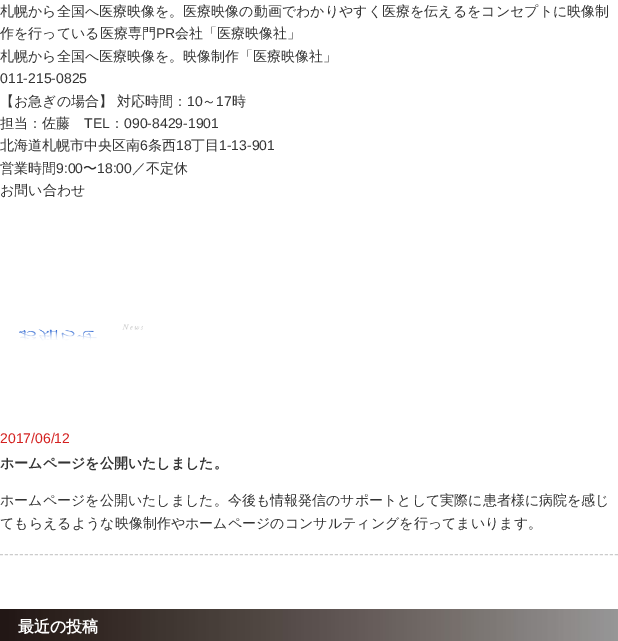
%!PS-Adobe-3.0
%%BoundingBox: 0 0 618 641
%%LanguageLevel: 3
%%Pages: 1
%%EndComments
%%BeginProlog
/setink { 3 { 255 div 3 1 roll } repeat setrgbcolor } def
/usefont { [ exch dup neg 0 0 3 -1 roll 0 0 ] selectfont } def
/drawtext { setink usefont moveto show } def
/fillbox { setink rectfill } def
/drawimage { 5 dict begin { /h /w /y /x /name } { exch def } forall
  gsave x y translate w h scale
  w h 8 [w 0 0 h 0 0] name (r) file false 3 colorimage grestore end } def
%%EndProlog
%%BeginSetup
<< /PageSize [618 641] >> setpagedevice
%%EndSetup
%%Page: 1 1
0 641 translate 1 -1 scale
4 setmiterlimit
0 0 618 641 255 255 255 fillbox
(札幌から全国へ医療映像を。医療映像の動画でわかりやすく医療を伝えるをコンセプトに映像制) 0 16 /WenQuanYiZenHei-Medium 14 51 51 51 drawtext
(作を行っている医療専門) 0 38 /WenQuanYiZenHei-Medium 14 51 51 51 drawtext
(PR) 156 38 /LiberationSans-Regular 14 51 51 51 drawtext
(会社「医療映像社」) 175 38 /WenQuanYiZenHei-Medium 14 51 51 51 drawtext
(札幌から全国へ医療映像を。映像制作「医療映像社」) 0 61 /WenQuanYiZenHei-Medium 14 51 51 51 drawtext
(011-215-0825) 0 83 /LiberationSans-Regular 14 51 51 51 drawtext
(【お急ぎの場合】 対応時間：) 0 106 /WenQuanYiZenHei-Medium 14 51 51 51 drawtext
(10) 187 106 /LiberationSans-Regular 14 51 51 51 drawtext
(～) 202 106 /WenQuanYiZenHei-Medium 14 51 51 51 drawtext
(17) 216 106 /LiberationSans-Regular 14 51 51 51 drawtext
(時) 232 106 /WenQuanYiZenHei-Medium 14 51 51 51 drawtext
(担当：佐藤) 0 128 /WenQuanYiZenHei-Medium 14 51 51 51 drawtext
(TEL) 84 128 /LiberationSans-Regular 14 51 51 51 drawtext
(：) 110 128 /WenQuanYiZenHei-Medium 14 51 51 51 drawtext
(090-8429-1901) 124 128 /LiberationSans-Regular 14 51 51 51 drawtext
(北海道札幌市中央区南) 0 150 /WenQuanYiZenHei-Medium 14 51 51 51 drawtext
(6) 140 150 /LiberationSans-Regular 14 51 51 51 drawtext
(条西) 148 150 /WenQuanYiZenHei-Medium 14 51 51 51 drawtext
(18) 176 150 /LiberationSans-Regular 14 51 51 51 drawtext
(丁目) 191 150 /WenQuanYiZenHei-Medium 14 51 51 51 drawtext
(1-13-901) 219 150 /LiberationSans-Regular 14 51 51 51 drawtext
(営業時間) 0 173 /WenQuanYiZenHei-Medium 14 51 51 51 drawtext
(9:00) 56 173 /LiberationSans-Regular 14 51 51 51 drawtext
(〜) 83 173 /WenQuanYiZenHei-Medium 14 51 51 51 drawtext
(18:00) 97 173 /LiberationSans-Regular 14 51 51 51 drawtext
(／不定休) 132 173 /WenQuanYiZenHei-Medium 14 51 51 51 drawtext
(お問い合わせ) 0 195 /WenQuanYiZenHei-Medium 14 51 51 51 drawtext
(assets/img1.rgb) 19 324 124 17 drawimage
204 204 204 setink
[3 2] 0 setdash
0 554.5 moveto 618 554.5 lineto stroke
(2017/06/12) 0 443 /LiberationSans-Regular 14 212 32 31 drawtext
(ホームページを公開いたしました。) 0 468 /WenQuanYiZenHei-Bold 14 51 51 51 drawtext
(ホームページを公開いたしました。今後も情報発信のサポートとして実際に患者様に病院を感じ) 0 505 /WenQuanYiZenHei-Medium 14 51 51 51 drawtext
(てもらえるような映像制作やホームページのコンサルティングを行ってまいります。) 0 528 /WenQuanYiZenHei-Medium 14 51 51 51 drawtext
(assets/img2.rgb) 0 609 618 32 drawimage
(最近の投稿) 18 632 /WenQuanYiZenHei-Bold 16 255 255 255 drawtext
showpage
%%EOF
